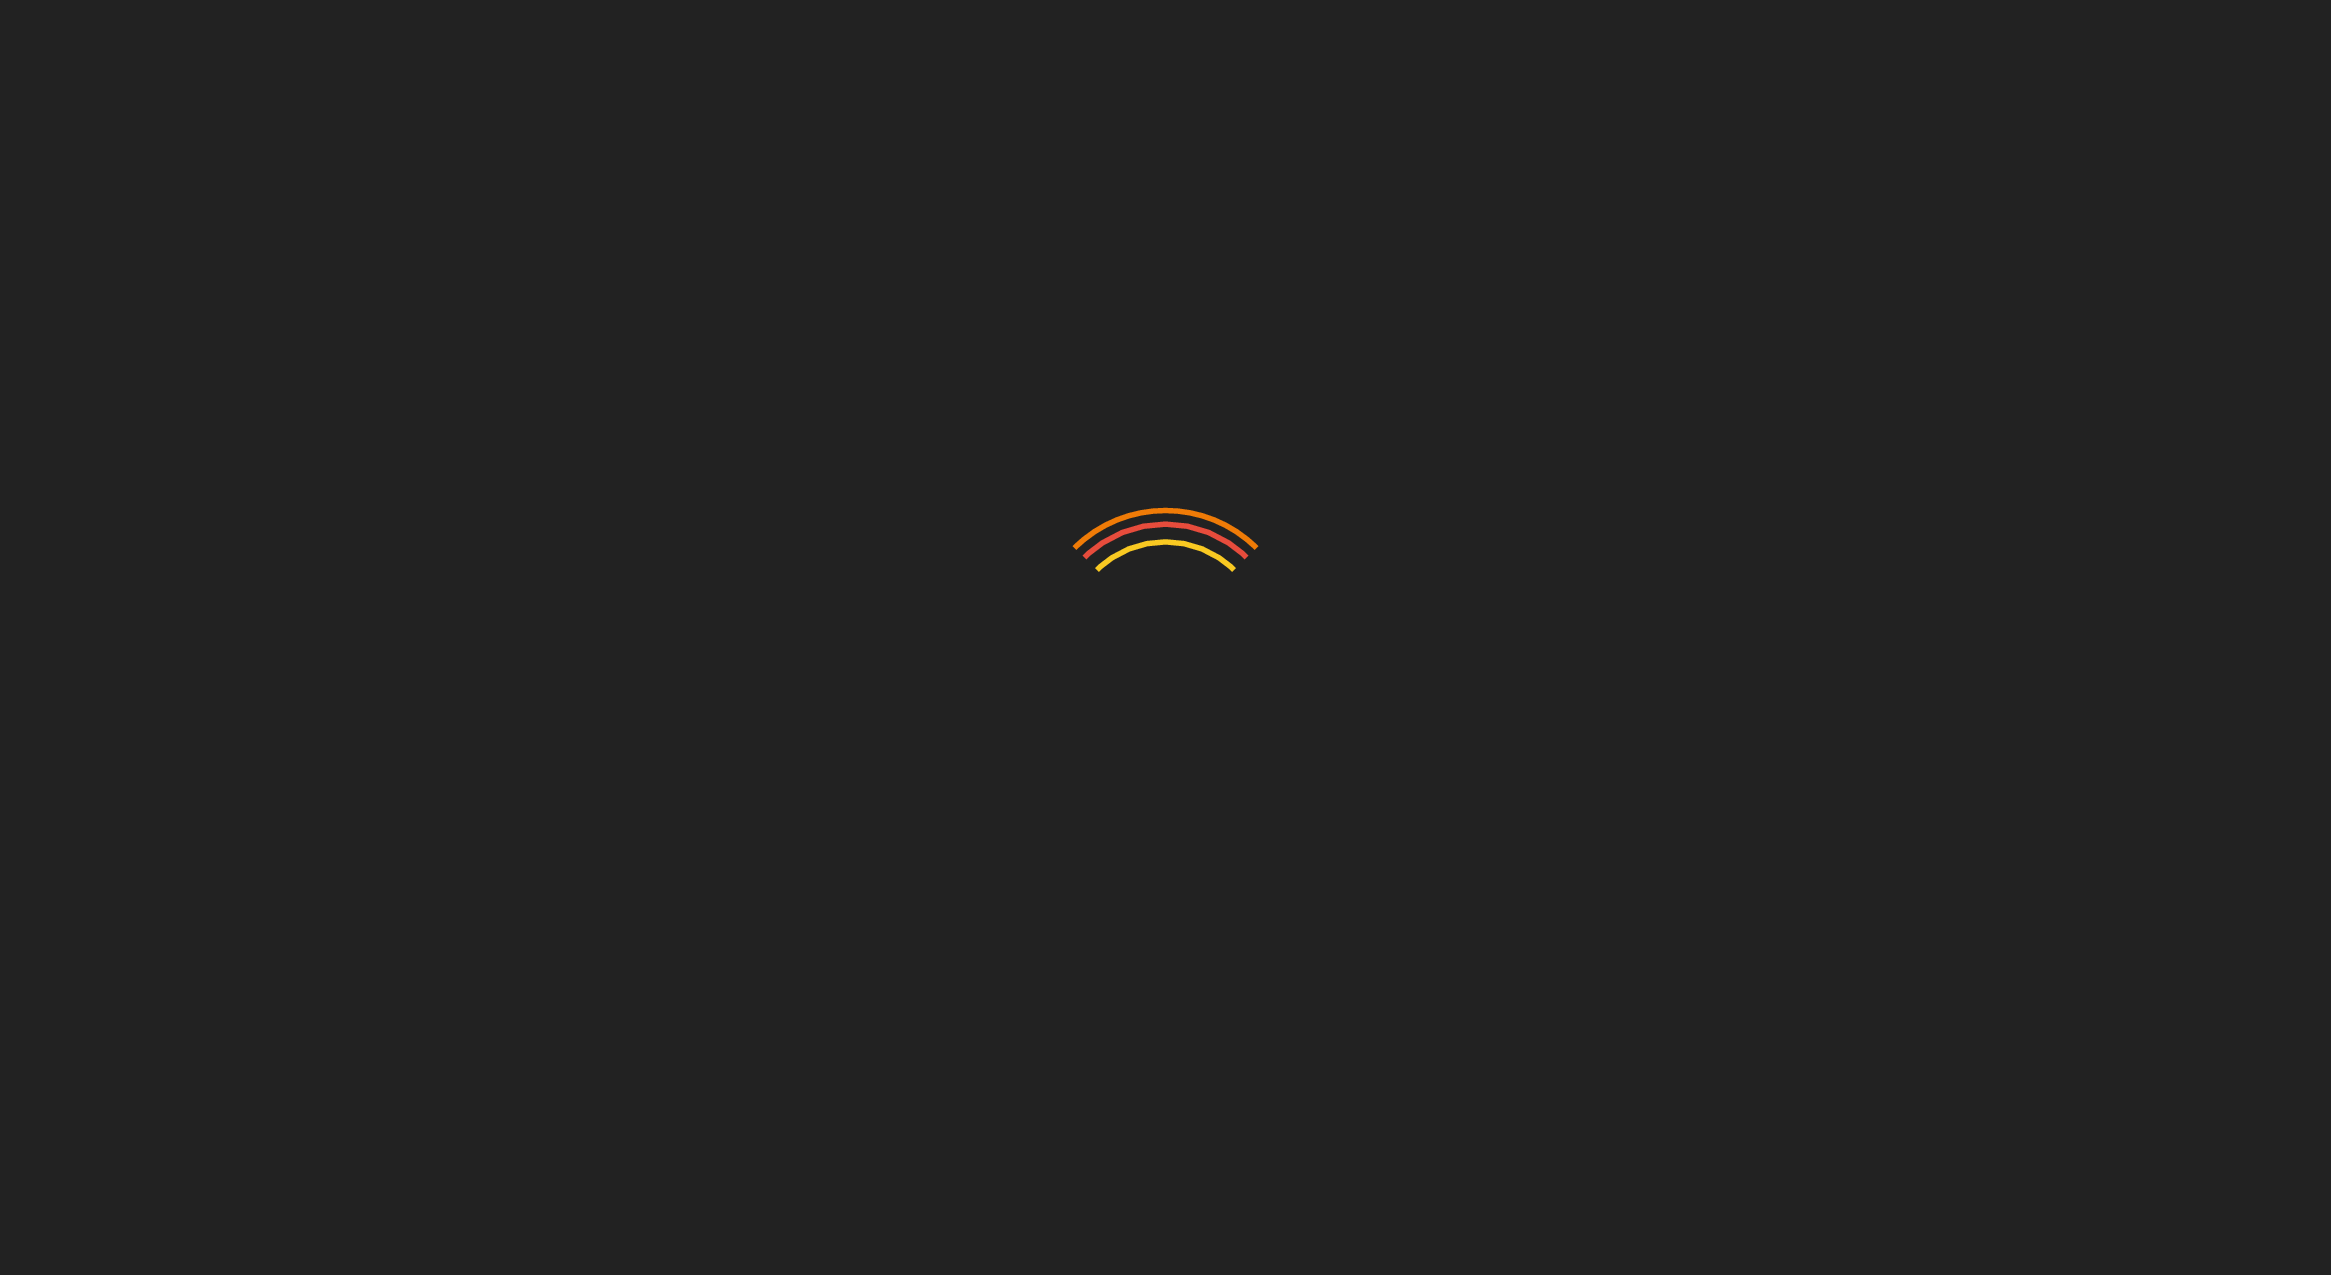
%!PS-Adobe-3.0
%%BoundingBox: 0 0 2331 1275
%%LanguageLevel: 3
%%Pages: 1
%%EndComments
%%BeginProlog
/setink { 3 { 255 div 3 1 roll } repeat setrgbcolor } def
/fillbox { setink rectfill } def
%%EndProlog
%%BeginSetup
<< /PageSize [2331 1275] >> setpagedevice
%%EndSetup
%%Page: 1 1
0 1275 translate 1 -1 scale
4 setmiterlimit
0 0 2331 1275 34 34 34 fillbox
239 123 7 setink
5.2 setlinewidth
1074.5 548 moveto 1124.5 498 1206.5 498 1256.5 548 curveto stroke
231 76 60 setink
1084.5 557.5 moveto 1129 513 1202 513 1246.5 557.5 curveto stroke
249 201 34 setink
1097 570 moveto 1134.5 532.5 1196.5 532.5 1234 570 curveto stroke
showpage
%%EOF
